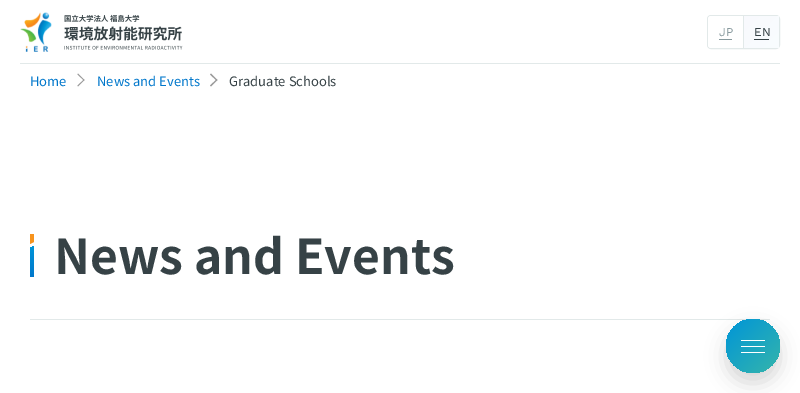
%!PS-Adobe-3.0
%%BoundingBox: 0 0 800 393
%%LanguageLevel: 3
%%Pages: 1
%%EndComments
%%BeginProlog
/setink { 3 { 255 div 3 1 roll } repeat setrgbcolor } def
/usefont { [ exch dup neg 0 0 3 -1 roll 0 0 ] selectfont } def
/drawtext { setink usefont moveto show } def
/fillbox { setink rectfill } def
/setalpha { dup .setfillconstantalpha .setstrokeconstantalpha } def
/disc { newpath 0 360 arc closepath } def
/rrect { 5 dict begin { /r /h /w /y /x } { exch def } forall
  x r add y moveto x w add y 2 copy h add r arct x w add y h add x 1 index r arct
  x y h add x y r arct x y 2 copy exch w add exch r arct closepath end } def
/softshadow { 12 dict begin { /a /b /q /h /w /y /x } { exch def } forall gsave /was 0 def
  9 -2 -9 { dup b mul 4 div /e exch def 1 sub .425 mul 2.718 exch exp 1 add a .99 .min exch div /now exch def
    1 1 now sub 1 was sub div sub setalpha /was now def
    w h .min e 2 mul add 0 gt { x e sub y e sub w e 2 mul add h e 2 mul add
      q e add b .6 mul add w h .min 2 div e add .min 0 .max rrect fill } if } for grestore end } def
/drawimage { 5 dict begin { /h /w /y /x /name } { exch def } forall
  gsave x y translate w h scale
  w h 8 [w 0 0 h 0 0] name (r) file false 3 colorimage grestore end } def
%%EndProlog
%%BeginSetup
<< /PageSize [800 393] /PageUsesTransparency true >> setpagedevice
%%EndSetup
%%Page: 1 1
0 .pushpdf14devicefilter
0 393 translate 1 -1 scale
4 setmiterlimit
0 0 800 393 255 255 255 fillbox
20 63 760 1 226 233 233 fillbox
(assets/img1.rgb) 20 12 32 40 drawimage
(assets/img2.rgb) 64 14 119 36 drawimage
707.5 15.5 72 33 3.5 rrect stroke
255 255 255 setink
711 16 moveto 743 16 lineto 743 48 lineto 711 48 lineto 709.5 48 708 46.5 708 45 curveto 708 19 lineto 708 17.5 709.5 16 711 16 curveto closepath fill
743 16 1 32 226 233 233 fillbox
(JP) 719 36 /WorkSans-Regular 12 135 153 157 drawtext
719 39 13 1 135 153 157 fillbox
gsave 744 16 moveto 776 16 lineto 777.5 16 779 17.5 779 19 curveto 779 45 lineto 779 46.5 777.5 48 776 48 curveto 744 48 lineto closepath clip newpath
<< /ShadingType 2 /ColorSpace /DeviceRGB /Coords [745 15 778 49] /Extend [true true] /Function << /FunctionType 2 /Domain [0 1] /C0 [0.973 0.976 0.992] /C1 [0.973 0.992 1] /N 1 >> >> shfill grestore
(EN) 754 36 /WorkSans-Regular 12 54 66 70 drawtext
754 39 15 1 54 66 70 fillbox
30 319 740 1 226 233 233 fillbox
0 0 0 setink
726 329 54 54 27 10 0.16 softshadow
gsave 753 346 27 disc clip newpath
<< /ShadingType 2 /ColorSpace /DeviceRGB /Coords [726 319 780 373] /Extend [true true] /Function << /FunctionType 2 /Domain [0 1] /C0 [0 0.584 0.847] /C1 [0.208 0.71 0.671] /N 1 >> >> shfill grestore
741 340 24 1 255 255 255 fillbox
741 346 24 1 255 255 255 fillbox
741 352 24 1 255 255 255 fillbox
(Home) 30 86 /NotoSansJP-Regular 13 0 119 203 drawtext
153 153 153 setink
78 73.5 moveto 84.5 80 lineto 84 80.5 lineto 77.5 74.5 lineto closepath fill
84 79.5 moveto 84.5 80 lineto 78 86.5 lineto 77.5 85.5 lineto closepath fill
(News and Events) 97 86 /NotoSansJP-Regular 13 0 119 203 drawtext
153 153 153 setink
211 73.5 moveto 217.5 80 lineto 216.5 80.5 lineto 210 74.5 lineto closepath fill
216.5 79.5 moveto 217.5 80 lineto 211 86.5 lineto 210 85.5 lineto closepath fill
(Graduate Schools) 229 86 /NotoSansJP-Regular 13 54 66 70 drawtext
247 147 29 setink
30 234 moveto 34 234 lineto 34 242 lineto 30 244 lineto closepath fill
gsave 30 248 moveto 34 246 lineto 34 277 lineto 30 277 lineto closepath clip newpath
<< /ShadingType 2 /ColorSpace /DeviceRGB /Coords [34 246 34 277] /Extend [true true] /Function << /FunctionType 2 /Domain [0 1] /C0 [0 0.584 0.847] /C1 [0 0.467 0.796] /N 1 >> >> shfill grestore
(News and Events) 54 274 /NotoSansJP-Bold 48 54 66 70 drawtext
.poppdf14devicefilter showpage
%%EOF
